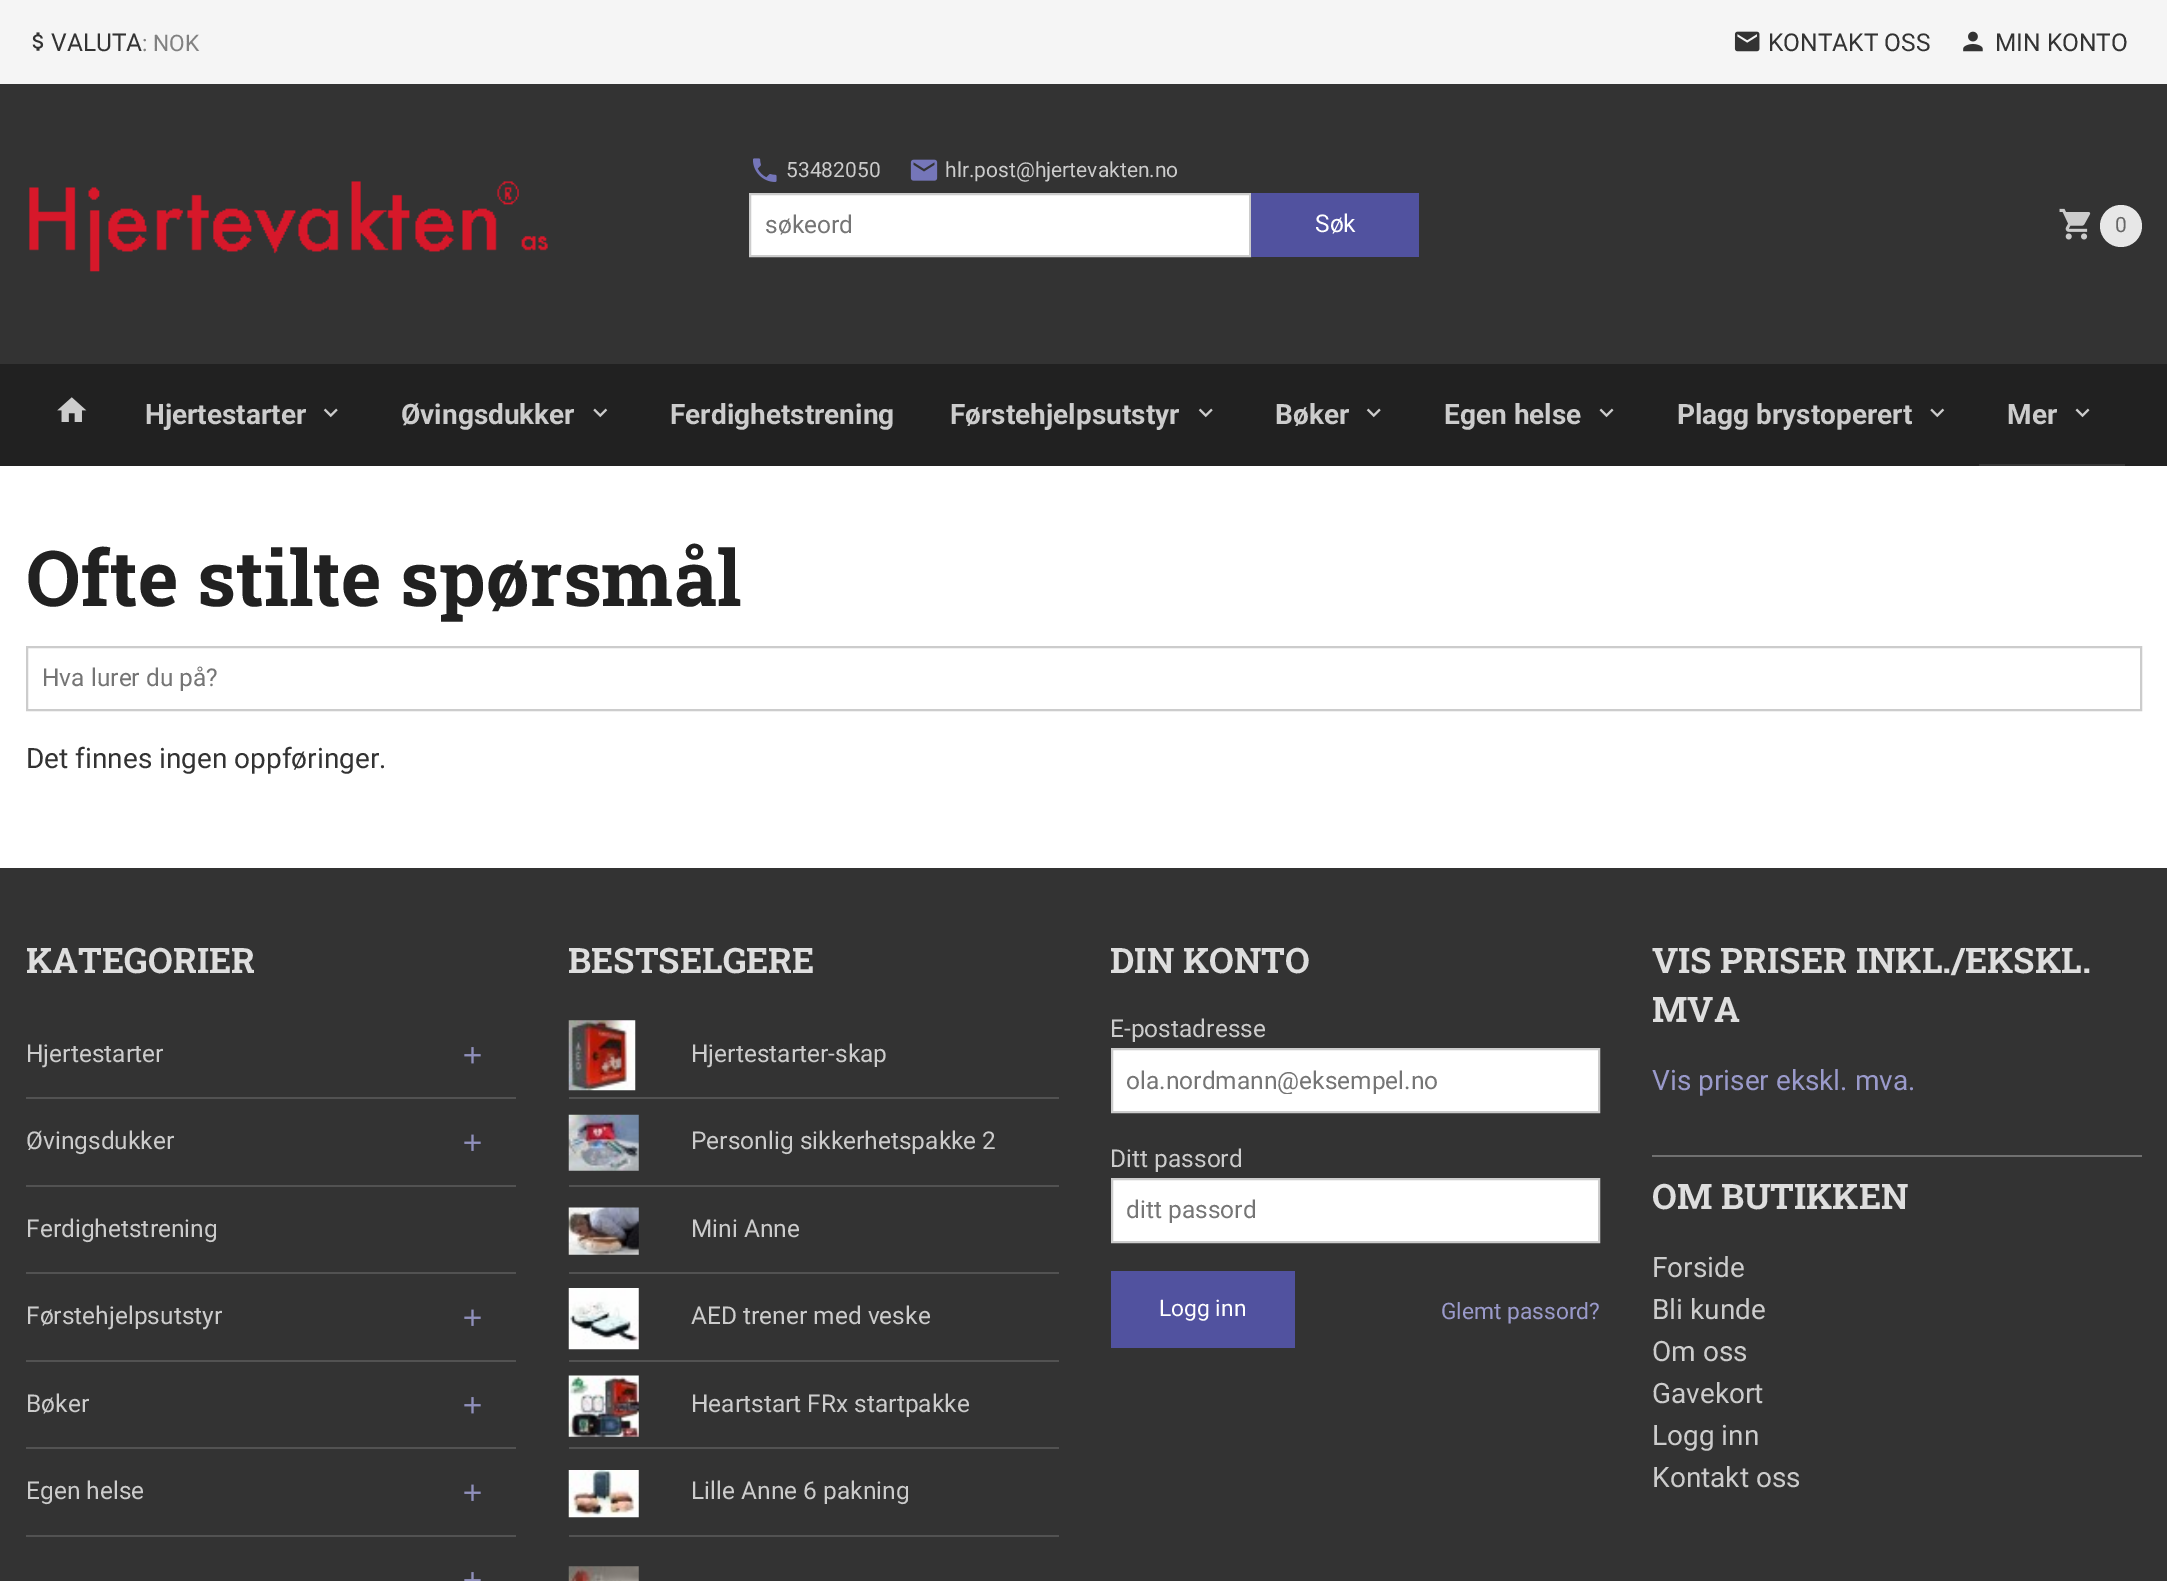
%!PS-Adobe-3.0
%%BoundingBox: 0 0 2167 1581
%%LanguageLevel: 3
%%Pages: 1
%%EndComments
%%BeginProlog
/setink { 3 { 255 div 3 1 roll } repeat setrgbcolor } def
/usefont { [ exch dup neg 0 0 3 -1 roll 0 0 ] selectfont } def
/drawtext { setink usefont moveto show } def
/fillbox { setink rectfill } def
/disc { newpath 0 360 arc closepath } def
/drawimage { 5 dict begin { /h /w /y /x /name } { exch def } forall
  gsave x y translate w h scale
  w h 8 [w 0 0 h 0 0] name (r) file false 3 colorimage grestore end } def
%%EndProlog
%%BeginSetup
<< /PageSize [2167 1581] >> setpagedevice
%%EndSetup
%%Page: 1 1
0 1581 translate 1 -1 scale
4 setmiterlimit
0 0 2167 1581 255 255 255 fillbox
0 0 2167 84 245 245 245 fillbox
(assets/img1.rgb) 32 32 12 19 drawimage
(VALUTA) 51 51 /Roboto-Regular 24.5 51 51 51 drawtext
(: NOK) 142 51 /Roboto-Regular 22.75 129 129 129 drawtext
(assets/img2.rgb) 1734 31 26 21 drawimage
(KONTAKT OSS) 1768 51 /Roboto-Regular 24.5 51 51 51 drawtext
(assets/img3.rgb) 1963 31 20 21 drawimage
(MIN KONTO) 1995 51 /Roboto-Regular 24.5 51 51 51 drawtext
0 84 2167 280 51 51 51 fillbox
(assets/img4.rgb) 29 181 519 91 drawimage
(assets/img5.rgb) 753 158 24 24 drawimage
(53482050) 786 177 /Roboto-Regular 21 204 204 204 drawtext
(assets/img6.rgb) 910 159 28 22 drawimage
(hlr.post@hjertevakten.no) 945 177 /Roboto-Regular 21 204 204 204 drawtext
255 255 255 setink
750 194 moveto 1250 194 lineto 1250 256 lineto 750 256 lineto closepath gsave fill grestore
204 204 204 setink
2 setlinewidth
stroke
(søkeord) 765 233 /Roboto-Regular 24.5 117 117 117 drawtext
1251 193 168 64 81 82 159 fillbox
(Søk) 1315 232 /Roboto-Regular 24.5 255 255 255 drawtext
(assets/img7.rgb) 2059 208 32 32 drawimage
231 231 231 setink
2121 226 21 disc fill
(0) 2115 232 /Roboto-Regular 21 102 102 102 drawtext
0 364 2167 102 33 33 33 fillbox
(assets/img8.rgb) 57 397 30 25 drawimage
(Hjertestarter) 145 424 /Roboto-Bold 28 204 204 204 drawtext
(assets/img9.rgb) 323 408 15 10 drawimage
(Øvingsdukker) 401 424 /Roboto-Bold 28 204 204 204 drawtext
(assets/img10.rgb) 593 408 15 10 drawimage
(Ferdighetstrening) 670 424 /Roboto-Bold 28 204 204 204 drawtext
(Førstehjelpsutstyr) 950 424 /Roboto-Bold 28 204 204 204 drawtext
(assets/img9.rgb) 1198 408 15 10 drawimage
(Bøker) 1275 424 /Roboto-Bold 28 204 204 204 drawtext
(assets/img9.rgb) 1366 408 15 10 drawimage
(Egen helse) 1444 424 /Roboto-Bold 28 204 204 204 drawtext
(assets/img11.rgb) 1599 408 15 10 drawimage
(Plagg brystoperert) 1677 424 /Roboto-Bold 28 204 204 204 drawtext
(assets/img10.rgb) 1930 408 15 10 drawimage
1979 464 146 2 55 55 55 fillbox
(Mer) 2007 424 /Roboto-Bold 28 204 204 204 drawtext
(assets/img11.rgb) 2075 408 15 10 drawimage
(Ofte stilte spørsmål) 26 606 /RobotoSlab-Bold 77 33 33 33 drawtext
204 204 204 setink
27 647 2114 63 rectstroke
(Hva lurer du på?) 42 686 /Roboto-Regular 24.5 117 117 117 drawtext
(Det finnes ingen oppføringer.) 26 768 /Roboto-Regular 28 51 51 51 drawtext
0 868 2167 713 51 51 51 fillbox
(KATEGORIER) 26 973 /RobotoSlab-Bold 35 222 222 222 drawtext
(Hjertestarter) 26 1062 /Roboto-Regular 24.5 204 204 204 drawtext
(assets/img12.rgb) 464 1047 17 17 drawimage
26 1097 490 2 82 82 82 fillbox
(Øvingsdukker) 26 1149 /Roboto-Regular 24.5 204 204 204 drawtext
(assets/img13.rgb) 464 1134 17 17 drawimage
26 1185 490 2 82 82 82 fillbox
(Ferdighetstrening) 26 1237 /Roboto-Regular 24.5 204 204 204 drawtext
26 1272 490 2 82 82 82 fillbox
(Førstehjelpsutstyr) 26 1324 /Roboto-Regular 24.5 204 204 204 drawtext
(assets/img13.rgb) 464 1309 17 17 drawimage
26 1360 490 2 82 82 82 fillbox
(Bøker) 26 1412 /Roboto-Regular 24.5 204 204 204 drawtext
(assets/img12.rgb) 464 1397 17 17 drawimage
26 1447 490 2 82 82 82 fillbox
(Egen helse) 26 1499 /Roboto-Regular 24.5 204 204 204 drawtext
(assets/img13.rgb) 464 1484 17 17 drawimage
26 1535 490 2 82 82 82 fillbox
(assets/img14.rgb) 464 1572 17 9 drawimage
(BESTSELGERE) 568 973 /RobotoSlab-Bold 35 222 222 222 drawtext
569 1097 490 2 82 82 82 fillbox
(assets/img15.rgb) 568 1020 68 71 drawimage
(Hjertestarter-skap) 691 1062 /Roboto-Regular 24.5 204 204 204 drawtext
569 1185 490 2 82 82 82 fillbox
(assets/img16.rgb) 568 1114 71 57 drawimage
(Personlig sikkerhetspakke 2) 691 1149 /Roboto-Regular 24.5 204 204 204 drawtext
569 1272 490 2 82 82 82 fillbox
(assets/img17.rgb) 568 1207 71 48 drawimage
(Mini Anne) 691 1237 /Roboto-Regular 24.5 204 204 204 drawtext
569 1360 490 2 82 82 82 fillbox
(assets/img18.rgb) 568 1288 71 62 drawimage
(AED trener med veske) 691 1324 /Roboto-Regular 24.5 204 204 204 drawtext
569 1447 490 2 82 82 82 fillbox
(assets/img19.rgb) 568 1375 71 62 drawimage
(Heartstart FRx startpakke) 691 1412 /Roboto-Regular 24.5 204 204 204 drawtext
569 1535 490 2 82 82 82 fillbox
(assets/img20.rgb) 568 1470 71 48 drawimage
(Lille Anne 6 pakning) 691 1499 /Roboto-Regular 24.5 204 204 204 drawtext
(assets/img21.rgb) 568 1566 71 15 drawimage
(DIN KONTO) 1110 973 /RobotoSlab-Bold 35 222 222 222 drawtext
(E-postadresse) 1110 1037 /Roboto-Regular 24.5 204 204 204 drawtext
255 255 255 setink
1112 1049 moveto 1599 1049 lineto 1599 1112 lineto 1112 1112 lineto closepath gsave fill grestore
204 204 204 setink
stroke
gsave
1127 1066 457 28 rectclip
(ola.nordmann@eksempel.no) 1126 1089 /Roboto-Regular 24.5 117 117 117 drawtext
grestore
(Ditt passord) 1110 1167 /Roboto-Regular 24.5 204 204 204 drawtext
255 255 255 setink
1112 1179 moveto 1599 1179 lineto 1599 1242 lineto 1112 1242 lineto closepath gsave fill grestore
204 204 204 setink
stroke
(ditt passord) 1126 1218 /Roboto-Regular 24.5 117 117 117 drawtext
1111 1271 184 77 81 82 159 fillbox
(Logg inn) 1159 1316 /Roboto-Regular 22.75 255 255 255 drawtext
(Glemt passord?) 1441 1319 /Roboto-Regular 22.75 154 154 203 drawtext
1652 1155 490 2 112 112 112 fillbox
(VIS PRISER INKL./EKSKL.) 1652 973 /RobotoSlab-Bold 35 222 222 222 drawtext
(MVA) 1652 1022 /RobotoSlab-Bold 35 222 222 222 drawtext
(Vis priser ekskl. mva.) 1652 1090 /Roboto-Regular 28 154 154 203 drawtext
(OM BUTIKKEN) 1652 1209 /RobotoSlab-Bold 35 222 222 222 drawtext
(Forside) 1652 1277 /Roboto-Regular 28 204 204 204 drawtext
(Bli kunde) 1652 1319 /Roboto-Regular 28 204 204 204 drawtext
(Om oss) 1652 1361 /Roboto-Regular 28 204 204 204 drawtext
(Gavekort) 1652 1403 /Roboto-Regular 28 204 204 204 drawtext
(Logg inn) 1652 1445 /Roboto-Regular 28 204 204 204 drawtext
(Kontakt oss) 1652 1487 /Roboto-Regular 28 204 204 204 drawtext
showpage
%%EOF
